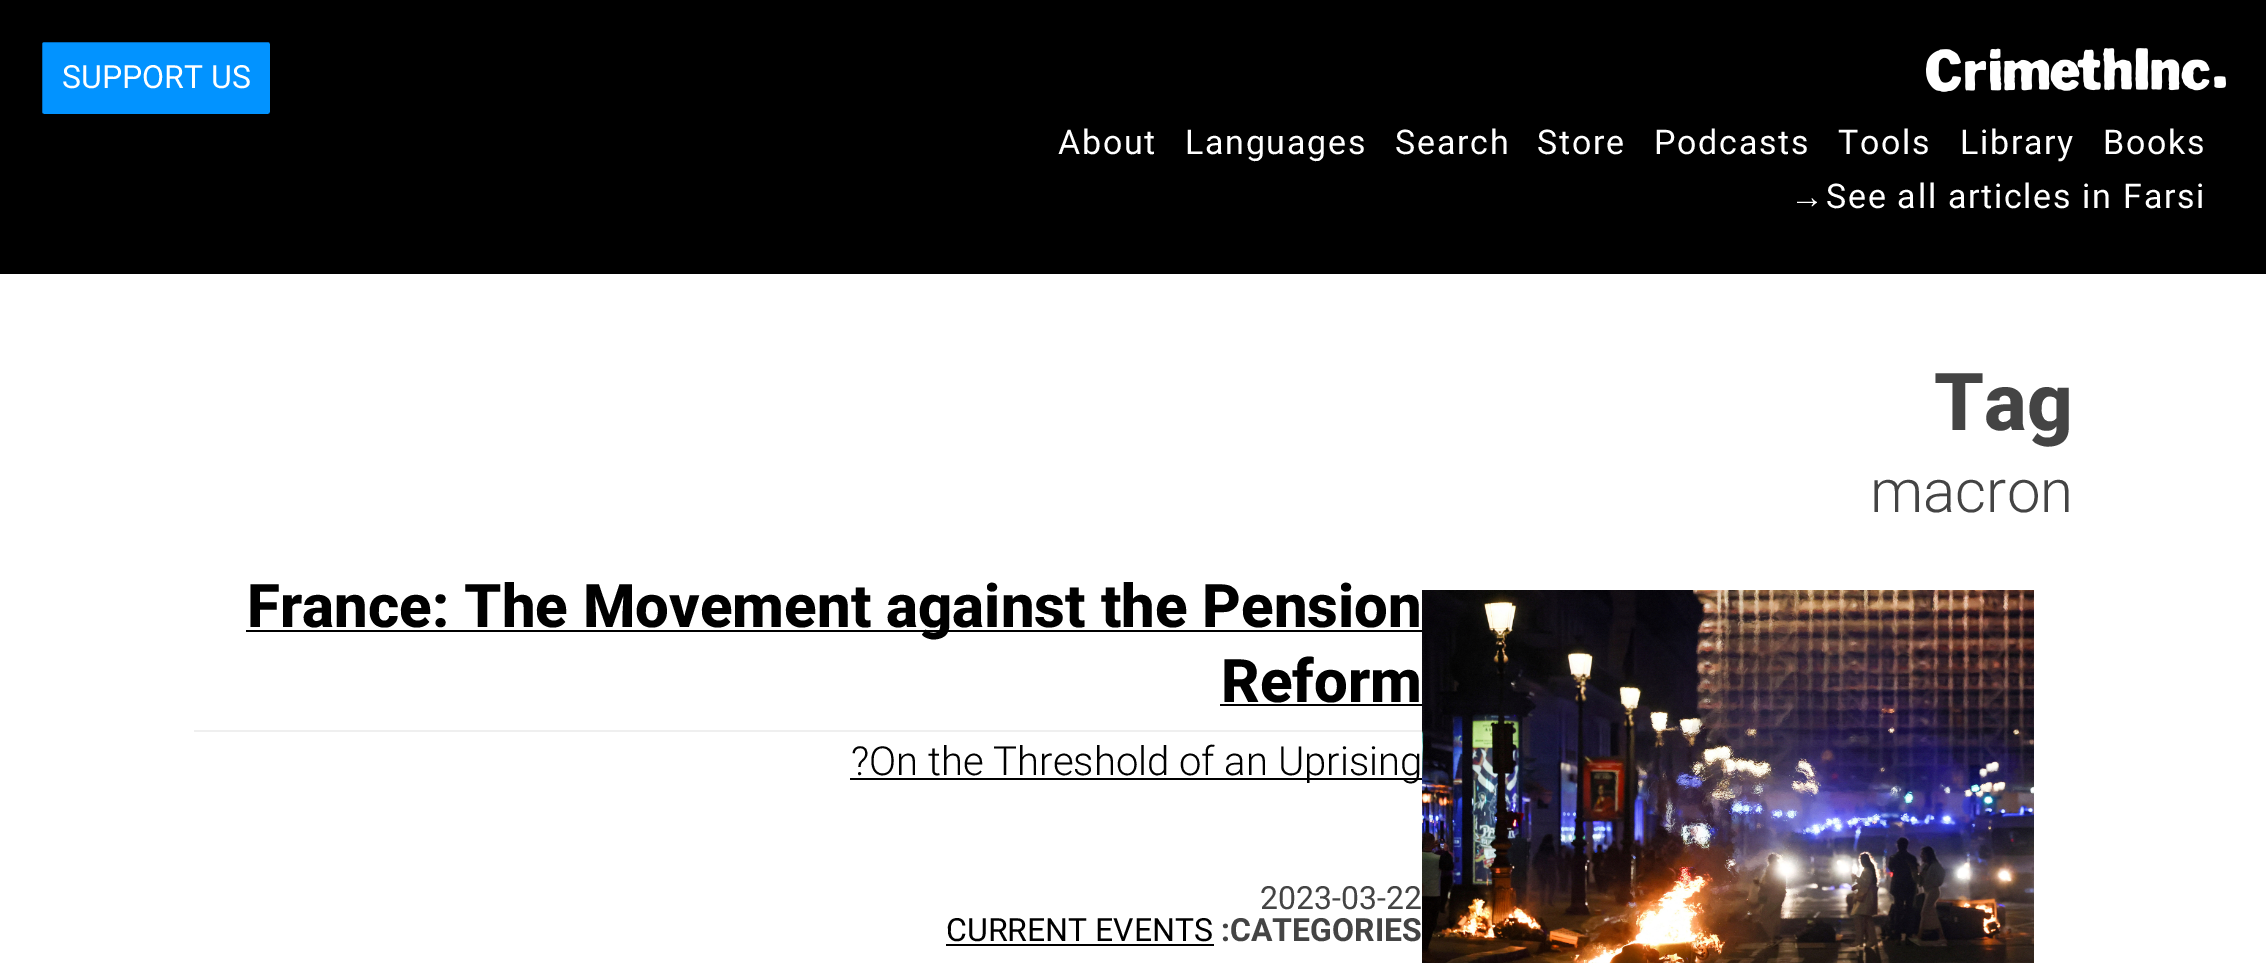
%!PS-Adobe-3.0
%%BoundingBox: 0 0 2266 963
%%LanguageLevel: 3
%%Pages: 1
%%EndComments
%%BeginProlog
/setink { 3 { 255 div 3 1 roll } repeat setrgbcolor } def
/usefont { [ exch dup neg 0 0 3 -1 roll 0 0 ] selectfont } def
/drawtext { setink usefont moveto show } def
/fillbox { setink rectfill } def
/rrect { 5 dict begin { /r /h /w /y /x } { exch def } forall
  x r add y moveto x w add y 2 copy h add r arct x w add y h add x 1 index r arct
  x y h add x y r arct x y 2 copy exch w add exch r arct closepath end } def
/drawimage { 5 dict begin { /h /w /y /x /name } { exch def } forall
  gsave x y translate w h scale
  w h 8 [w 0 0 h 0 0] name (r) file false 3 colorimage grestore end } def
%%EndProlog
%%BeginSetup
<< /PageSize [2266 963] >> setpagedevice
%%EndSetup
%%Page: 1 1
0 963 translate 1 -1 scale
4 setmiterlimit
0 0 2266 963 255 255 255 fillbox
0 0 2266 274 0 0 0 fillbox
2 147 255 setink
41 41 230 74 3 rrect gsave fill grestore
0 0 0 setink
2 setlinewidth
stroke
(SUPPORT US) 62 88 /Roboto-Regular 32 255 255 255 drawtext
(assets/img1.rgb) 1926 48 300 44 drawimage
/Roboto-Regular 34 usefont
1058 154 moveto 1.7 0 (About) ashow
1185 154 moveto 1.7 0 (Languages) ashow
1395 154 moveto 1.7 0 (Search) ashow
1537 154 moveto 1.7 0 (Store) ashow
1654 154 moveto 1.7 0 (Podcasts) ashow
1838 154 moveto 1.7 0 (Tools) ashow
1960 154 moveto 1.7 0 (Library) ashow
2103 154 moveto 1.7 0 (Books) ashow
/LiberationSans-Regular 34 usefont
1790 208 moveto 1.7 0 (→) ashow
/Roboto-Regular 34 usefont
1826 208 moveto 1.7 0 (See all articles in Farsi) ashow
(Tag) 1934 430 /Roboto-ExtraBold 80 68 68 68 drawtext
(macron) 1870 512 /Roboto-Light 60 68 68 68 drawtext
194 730 1228 2 239 239 239 fillbox
246 630 1176 2 0 0 0 fillbox
(France: The Movement against the Pension) 247 627 /Roboto-ExtraBold 60 0 0 0 drawtext
(Reform) 1221 702 /Roboto-ExtraBold 60 0 0 0 drawtext
1220 704 202 2 0 0 0 fillbox
850 778 572 2 0 0 0 fillbox
(?On the Threshold of an Uprising) 851 775 /Roboto-Light 40 0 0 0 drawtext
(2023-03-22) 1260 909 /Roboto-Regular 32 68 68 68 drawtext
(CURRENT EVENTS) 946 941 /Roboto-Regular 32 0 0 0 drawtext
946 944 268 2 0 0 0 fillbox
(:CATEGORIES) 1221 941 /Roboto-Bold 32 68 68 68 drawtext
(assets/img2.rgb) 1422 590 612 373 drawimage
showpage
%%EOF
